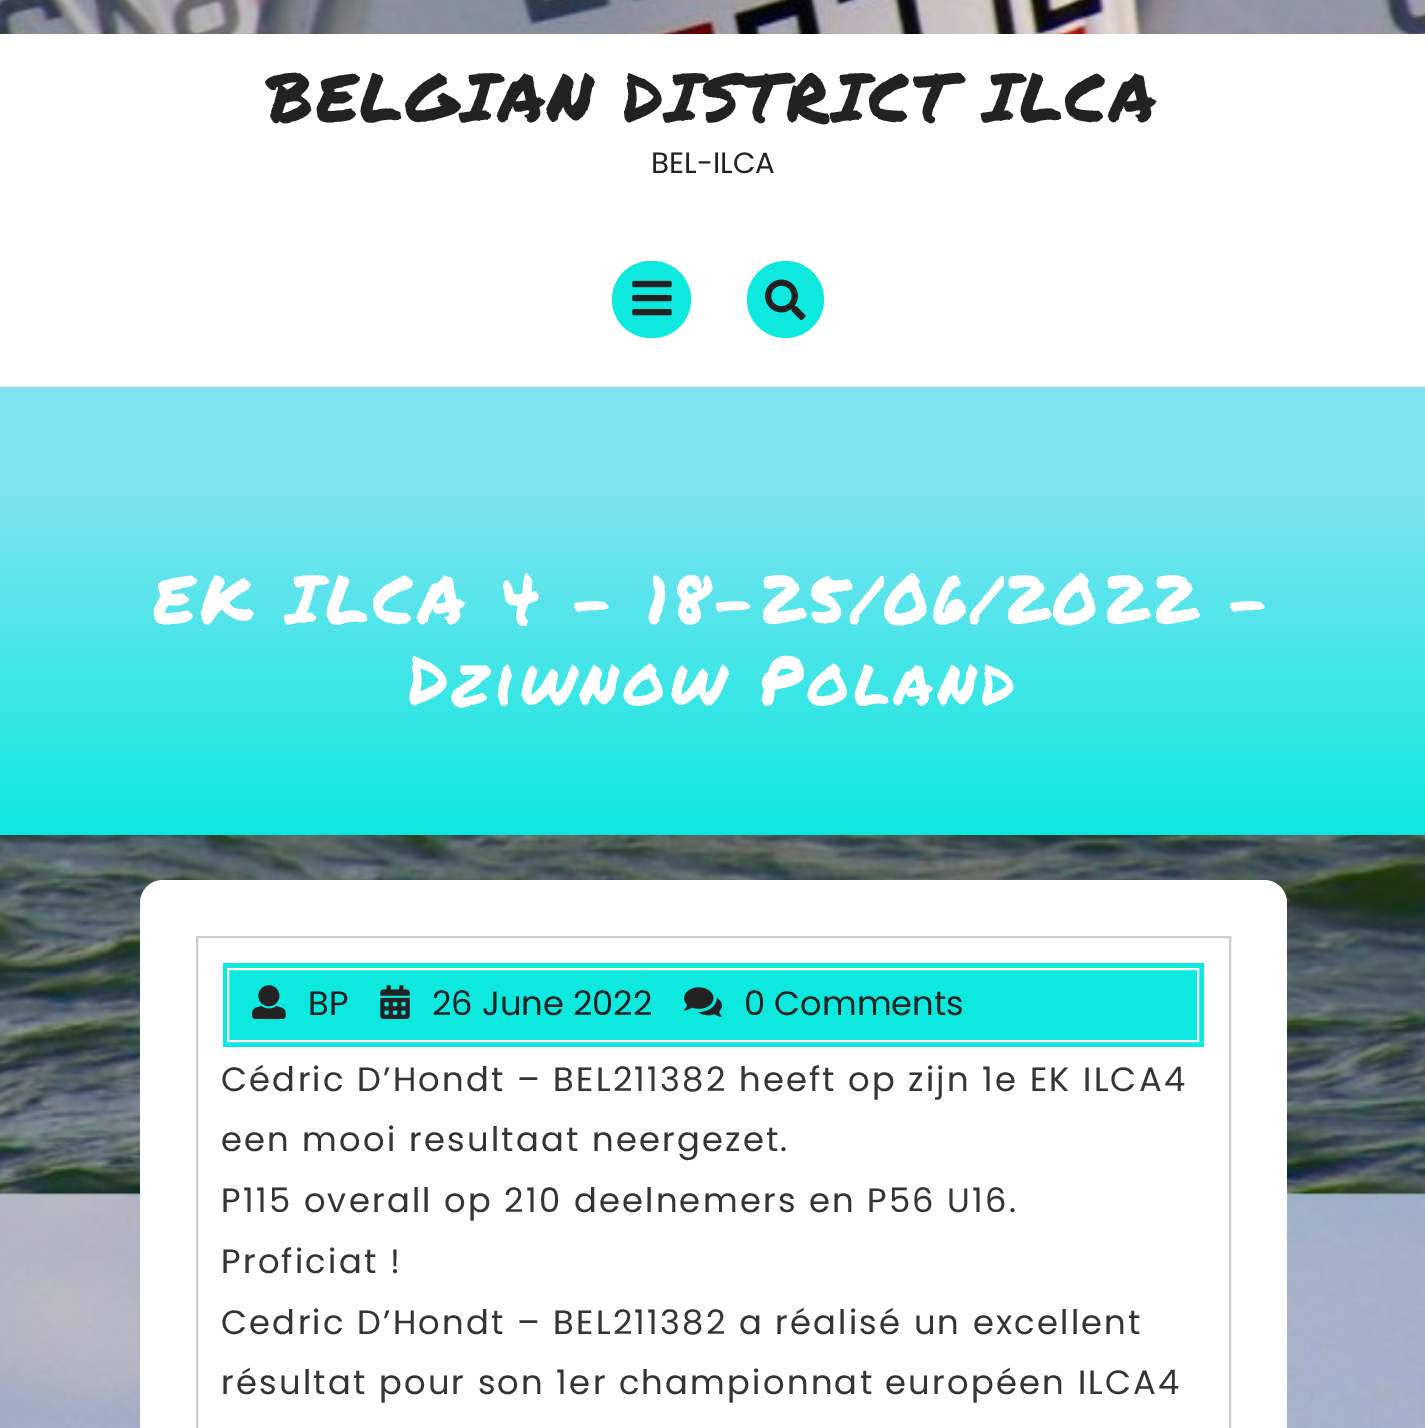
%!PS-Adobe-3.0
%%BoundingBox: 0 0 1425 1428
%%LanguageLevel: 3
%%Pages: 1
%%EndComments
%%BeginProlog
/setink { 3 { 255 div 3 1 roll } repeat setrgbcolor } def
/usefont { [ exch dup neg 0 0 3 -1 roll 0 0 ] selectfont } def
/drawtext { setink usefont moveto show } def
/fillbox { setink rectfill } def
/disc { newpath 0 360 arc closepath } def
/rrect { 5 dict begin { /r /h /w /y /x } { exch def } forall
  x r add y moveto x w add y 2 copy h add r arct x w add y h add x 1 index r arct
  x y h add x y r arct x y 2 copy exch w add exch r arct closepath end } def
/drawimage { 5 dict begin { /h /w /y /x /name } { exch def } forall
  gsave x y translate w h scale
  w h 8 [w 0 0 h 0 0] name (r) file false 3 colorimage grestore end } def
%%EndProlog
%%BeginSetup
<< /PageSize [1425 1428] >> setpagedevice
%%EndSetup
%%Page: 1 1
0 1428 translate 1 -1 scale
4 setmiterlimit
0 0 1425 1428 255 255 255 fillbox
(assets/img1.rgb) 0 0 1425 1428 drawimage
0 34 1425 353 255 255 255 fillbox
/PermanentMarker-Regular 67.5 usefont
34 34 34 setink
267 122 moveto 2.25 0 (BELGIAN DISTRICT ILCA) ashow
(BEL-ILCA) 651 173 /Poppins-Regular 29.25 34 34 34 drawtext
13 233 223 setink
612 261 79 77 38.5 rrect fill
(assets/img2.rgb) 632 280 40 36 drawimage
785.5 299.5 38.5 disc fill
(assets/img3.rgb) 765 279 41 41 drawimage
gsave 0 387 moveto 1425 387 lineto 1425 835 lineto 0 835 lineto closepath clip newpath
<< /ShadingType 2 /ColorSpace /DeviceRGB /Coords [713 835 713 387] /Extend [true true] /Function << /FunctionType 3 /Domain [0 1] /Functions [<< /FunctionType 2 /Domain [0 1] /C0 [0.051 0.914 0.875] /C1 [0.506 0.89 0.949] /N 1 >> << /FunctionType 2 /Domain [0 1] /C0 [0.506 0.89 0.949] /C1 [0.506 0.89 0.949] /N 1 >>] /Bounds [0.8] /Encode [0 1 0 1] >> >> shfill grestore
/PermanentMarker-Regular 67.5 usefont
255 255 255 setink
153 624 moveto 4.5 0 (EK ILCA 4 – 18-25/06/2022 –) ashow
408 705 moveto 4.5 0 (Dziwnow Poland) ashow
140 880 1147 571 23 rrect fill
205 205 205 setink
2 setlinewidth
197 937 1033 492 rectstroke
223 963 981 84 13 233 223 fillbox
255 255 255 setink
228 969 970 72 rectstroke
(assets/img4.rgb) 252 985 34 34 drawimage
(BP) 308 1015 /Poppins-Regular 33.75 34 34 34 drawtext
(assets/img5.rgb) 380 985 30 34 drawimage
(26 June 2022) 432 1015 /Poppins-Regular 33.75 34 34 34 drawtext
(assets/img6.rgb) 684 987 38 30 drawimage
(0 Comments) 744 1015 /Poppins-Regular 33.75 34 34 34 drawtext
52 52 52 setink
221 1091 moveto 2.25 0 (Cédric D’Hondt – BEL211382 heeft op zijn 1e EK ILCA4) ashow
221 1151 moveto 2.25 0 (een mooi resultaat neergezet.) ashow
221 1212 moveto 2.25 0 (P115 overall op 210 deelnemers en P56 U16.) ashow
221 1273 moveto 2.25 0 (Proficiat !) ashow
221 1334 moveto 2.25 0 (Cedric D’Hondt – BEL211382 a réalisé un excellent) ashow
221 1394 moveto 2.25 0 (résultat pour son 1er championnat européen ILCA4) ashow
showpage
%%EOF
